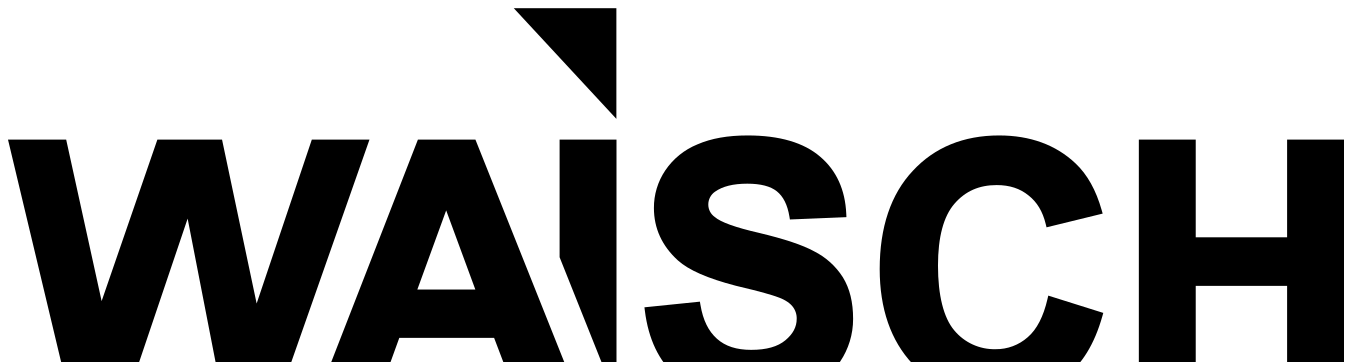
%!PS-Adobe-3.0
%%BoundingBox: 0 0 1352 362
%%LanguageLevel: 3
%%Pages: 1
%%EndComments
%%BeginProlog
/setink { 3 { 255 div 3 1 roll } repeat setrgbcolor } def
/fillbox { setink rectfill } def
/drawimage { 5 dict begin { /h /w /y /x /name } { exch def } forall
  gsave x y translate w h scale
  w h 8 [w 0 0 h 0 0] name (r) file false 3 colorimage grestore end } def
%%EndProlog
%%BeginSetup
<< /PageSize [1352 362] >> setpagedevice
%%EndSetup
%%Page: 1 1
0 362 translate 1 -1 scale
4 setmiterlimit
0 0 1352 362 255 255 255 fillbox
(assets/img1.rgb) 8 8 1336 354 drawimage
showpage
%%EOF
